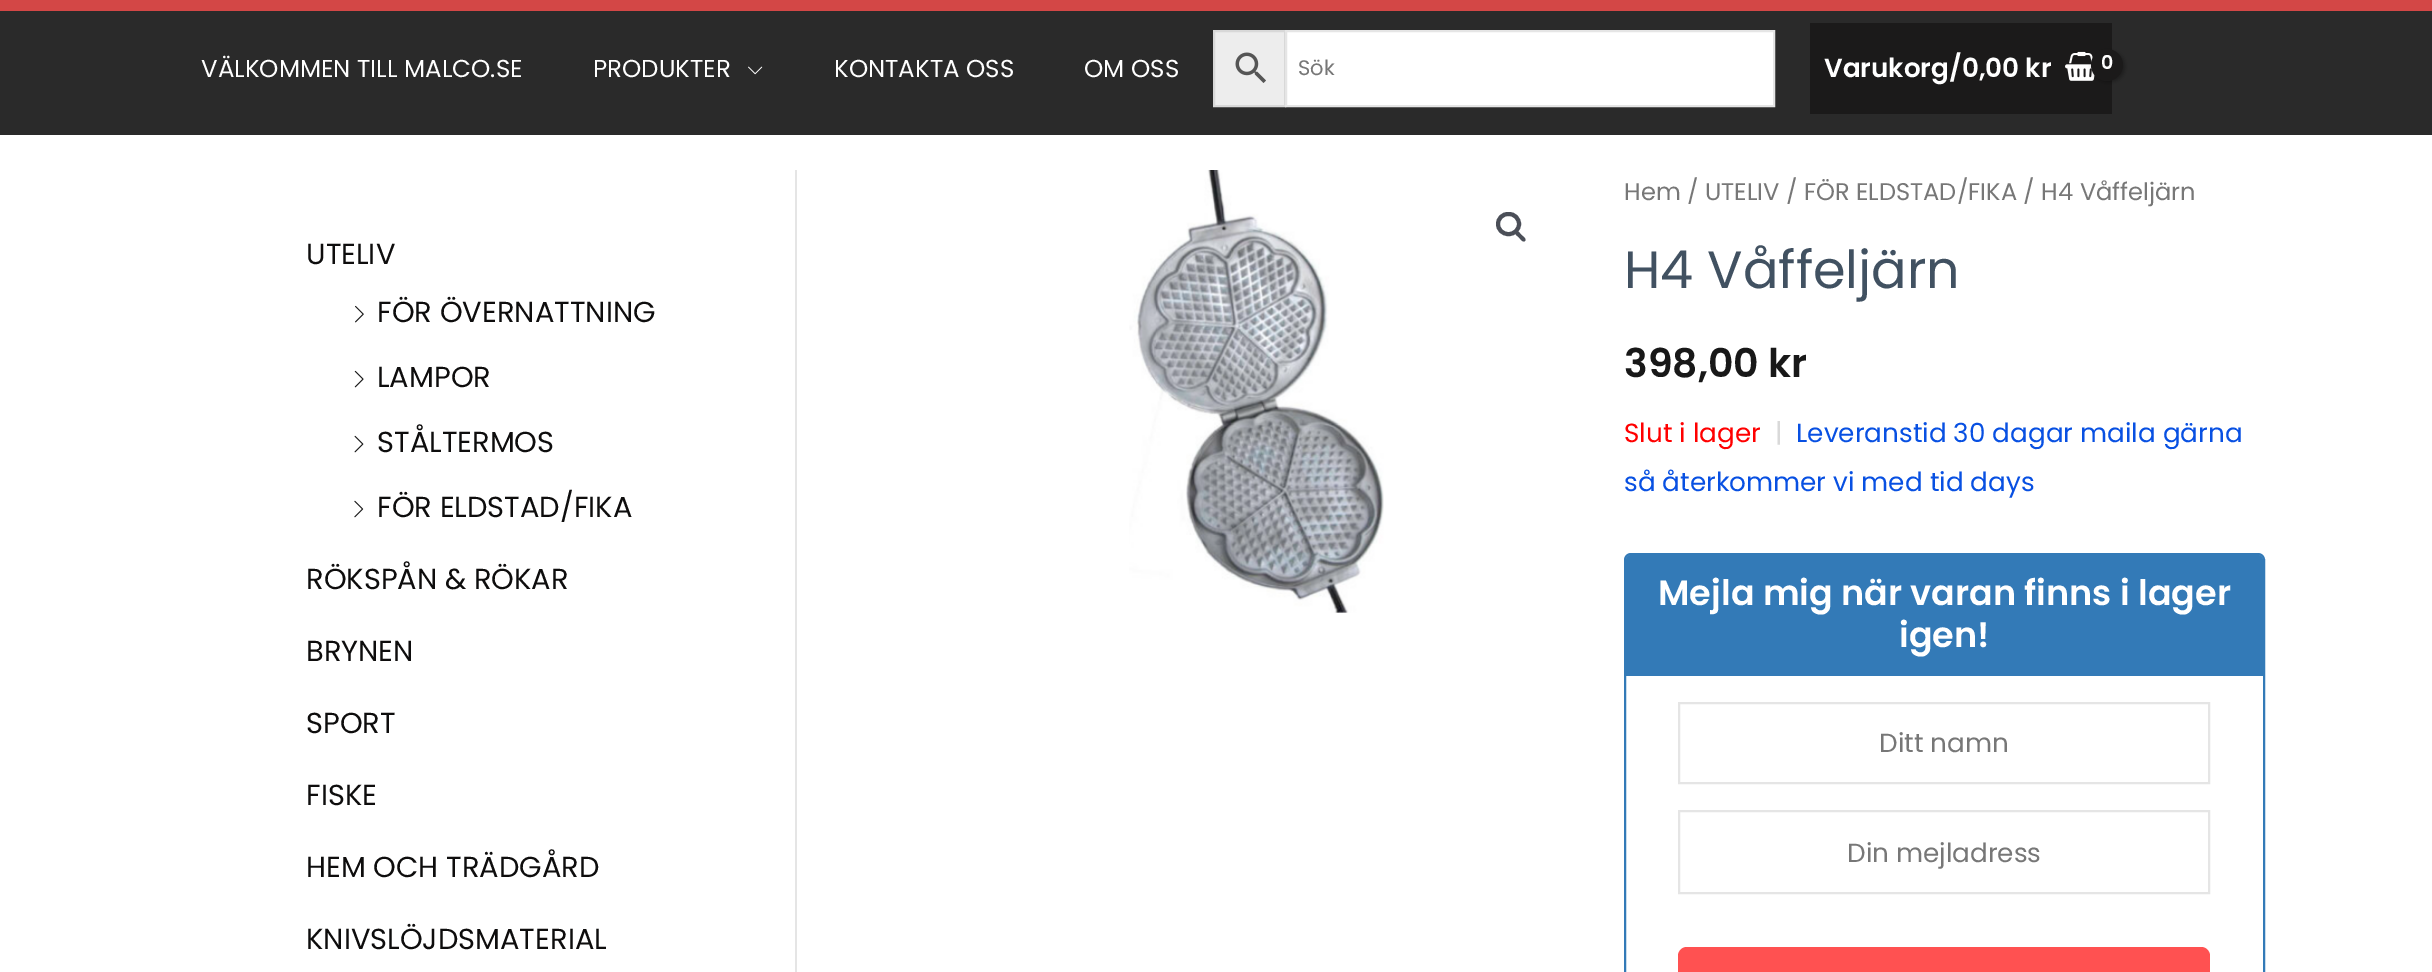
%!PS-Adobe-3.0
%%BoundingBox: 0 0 2432 972
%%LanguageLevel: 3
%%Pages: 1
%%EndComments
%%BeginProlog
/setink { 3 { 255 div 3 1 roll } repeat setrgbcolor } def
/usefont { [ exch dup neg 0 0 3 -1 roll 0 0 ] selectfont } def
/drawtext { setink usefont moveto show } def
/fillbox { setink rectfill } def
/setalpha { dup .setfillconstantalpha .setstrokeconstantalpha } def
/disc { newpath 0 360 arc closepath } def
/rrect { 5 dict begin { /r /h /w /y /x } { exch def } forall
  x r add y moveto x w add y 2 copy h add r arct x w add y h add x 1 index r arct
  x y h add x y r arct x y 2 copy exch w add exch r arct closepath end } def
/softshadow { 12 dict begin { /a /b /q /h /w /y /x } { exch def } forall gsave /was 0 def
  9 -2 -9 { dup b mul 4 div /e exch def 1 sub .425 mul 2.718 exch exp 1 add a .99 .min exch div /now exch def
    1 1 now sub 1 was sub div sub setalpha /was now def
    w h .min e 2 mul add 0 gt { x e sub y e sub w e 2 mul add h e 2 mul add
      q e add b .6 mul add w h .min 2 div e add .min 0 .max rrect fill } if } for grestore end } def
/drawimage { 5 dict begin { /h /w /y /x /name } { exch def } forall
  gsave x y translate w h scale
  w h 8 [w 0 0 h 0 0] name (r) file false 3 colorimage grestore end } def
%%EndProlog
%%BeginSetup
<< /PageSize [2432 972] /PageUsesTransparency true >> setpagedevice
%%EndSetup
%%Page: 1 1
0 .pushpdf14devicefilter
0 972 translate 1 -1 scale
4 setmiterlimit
0 0 2432 972 255 255 255 fillbox
0 0 2432 11 211 71 70 fillbox
0 11 2432 124 42 42 42 fillbox
(VÄLKOMMEN TILL MALCO.SE) 201 77 /Poppins-Regular 24.5 255 255 255 drawtext
(PRODUKTER) 593 77 /Poppins-Regular 24.5 255 255 255 drawtext
(assets/img1.rgb) 748 66 15 9 drawimage
(KONTAKTA OSS) 834 77 /Poppins-Regular 24.5 255 255 255 drawtext
(OM OSS) 1084 77 /Poppins-Regular 24.5 255 255 255 drawtext
237 237 237 setink
1214 31 moveto 1285 31 lineto 1285 106 lineto 1214 106 lineto closepath gsave fill grestore
216 216 216 setink
2 setlinewidth
stroke
(assets/img2.rgb) 1235 52 31 31 drawimage
255 255 255 setink
1286 31 moveto 1774 31 lineto 1774 106 lineto 1286 106 lineto closepath gsave fill grestore
229 229 229 setink
stroke
(Sök) 1298 75 /Poppins-Regular 21 119 119 119 drawtext
1810 23 302 91 27 26 26 fillbox
(Varukorg/0,00 kr) 1824 77 /Poppins-SemiBold 26.25 255 255 255 drawtext
(assets/img3.rgb) 2065 51 30 30 drawimage
0 0 0 setink
2093 51 32 31 15.5 2.5 0.3 softshadow
27 26 26 setink
2107 65 16 disc fill
/Poppins-SemiBold 19 usefont
255 255 255 setink
2101 69 moveto -1 0 (0) ashow
795 170 2 802 229 229 229 fillbox
(UTELIV) 306 264 /Poppins-Regular 28.9 14 13 13 drawtext
(assets/img4.rgb) 355 305 9 18 drawimage
(FÖR ÖVERNATTNING) 377 322 /Poppins-Regular 28.9 14 13 13 drawtext
(assets/img5.rgb) 354 370 10 18 drawimage
(LAMPOR) 377 387 /Poppins-Regular 28.9 14 13 13 drawtext
(assets/img6.rgb) 354 435 10 18 drawimage
(STÅLTERMOS) 377 452 /Poppins-Regular 28.9 14 13 13 drawtext
(assets/img7.rgb) 354 500 10 18 drawimage
(FÖR ELDSTAD/FIKA) 377 517 /Poppins-Regular 28.9 14 13 13 drawtext
(RÖKSPÅN & RÖKAR) 306 589 /Poppins-Regular 28.9 14 13 13 drawtext
(BRYNEN) 306 661 /Poppins-Regular 28.9 14 13 13 drawtext
(SPORT) 306 733 /Poppins-Regular 28.9 14 13 13 drawtext
(FISKE) 306 805 /Poppins-Regular 28.9 14 13 13 drawtext
(HEM OCH TRÄDGÅRD) 306 877 /Poppins-Regular 28.9 14 13 13 drawtext
(KNIVSLÖJDSMATERIAL) 306 949 /Poppins-Regular 28.9 14 13 13 drawtext
(assets/img8.rgb) 1129 170 255 443 drawimage
75 79 88 setink
4 setlinewidth
1498 214 21 20 10 rrect stroke
1515.5 231.5 moveto 1517.5 229.5 1520.5 234 1521.5 235 curveto 1522.5 236 1527 239 1525 241 curveto 1523 243 1520 238.5 1519 237.5 curveto 1518 236.5 1513.5 233.5 1515.5 231.5 curveto closepath fill
(Hem / UTELIV / FÖR ELDSTAD/FIKA / H4 Våffeljärn) 1624 200 /Poppins-Regular 24.15 119 119 119 drawtext
(H4 Våffeljärn) 1624 288 /Poppins-Regular 52.5 65 81 97 drawtext
(398,00 kr) 1624 377 /Poppins-SemiBold 39.5 24 24 24 drawtext
(Slut i lager) 1624 442 /Poppins-Regular 26.25 255 0 0 drawtext
(|) 1775 442 /Poppins-Regular 26.25 217 217 217 drawtext
(Leveranstid 30 dagar maila gärna) 1796 442 /Poppins-Regular 26.25 8 80 226 drawtext
(så återkommer vi med tid days) 1624 491 /Poppins-Regular 26.25 8 80 226 drawtext
51 122 183 setink
2 setlinewidth
1625 554 639 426 6 rrect stroke
1631 555 moveto 2258 555 lineto 2261 555 2263 557 2263 560 curveto 2263 676 lineto 1626 676 lineto 1626 560 lineto 1626 557 1628 555 1631 555 curveto closepath fill
(Mejla mig när varan finns i lager) 1658 605 /Poppins-SemiBold 35 255 255 255 drawtext
(igen!) 1899 647 /Poppins-SemiBold 35 255 255 255 drawtext
229 229 229 setink
1679 703 530 80 rectstroke
(Ditt namn) 1879 752 /Poppins-Regular 26.25 119 119 119 drawtext
229 229 229 setink
1679 811 530 82 rectstroke
(Din mejladress) 1847 862 /Poppins-Regular 26.25 119 119 119 drawtext
255 81 81 setink
1678 947 532 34 9 rrect fill
.poppdf14devicefilter showpage
%%EOF
